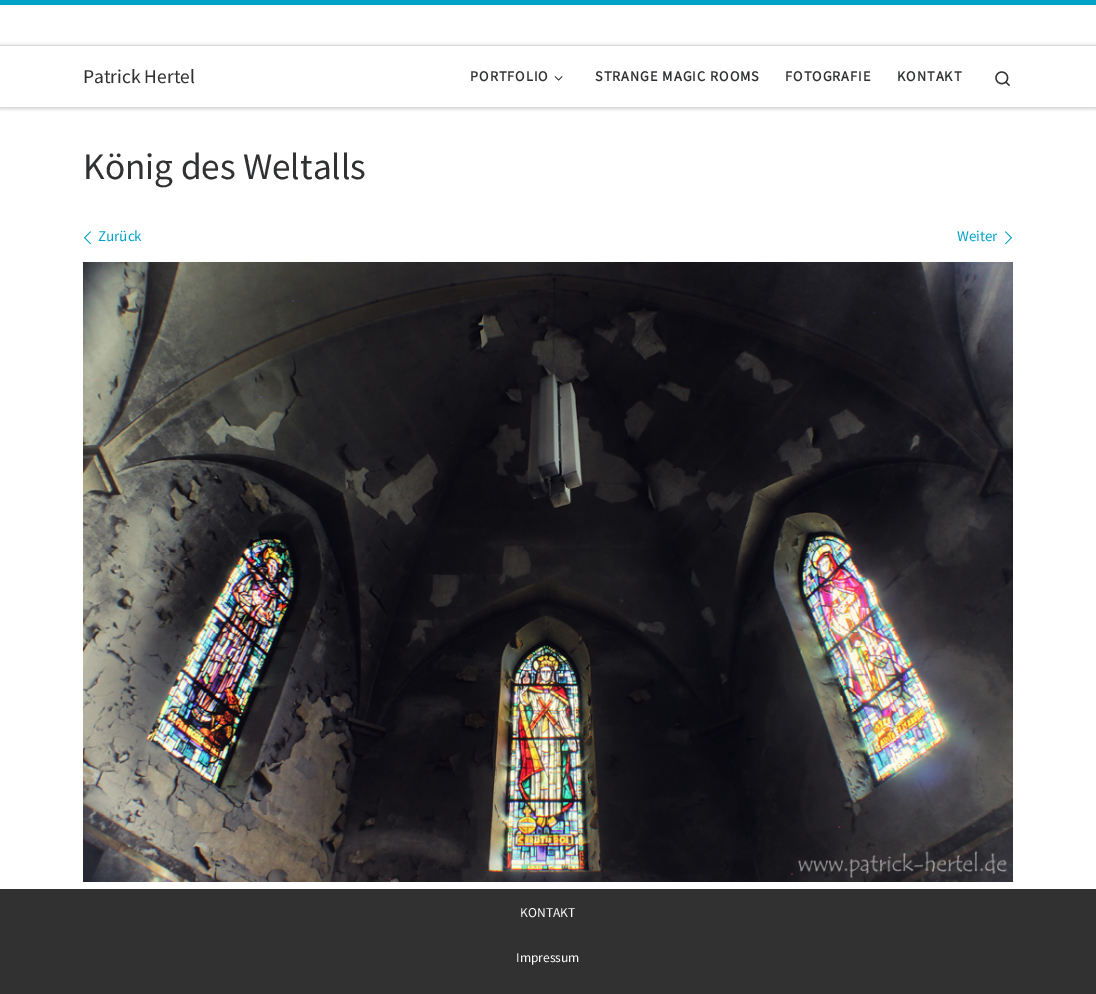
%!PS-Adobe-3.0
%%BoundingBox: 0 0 1096 994
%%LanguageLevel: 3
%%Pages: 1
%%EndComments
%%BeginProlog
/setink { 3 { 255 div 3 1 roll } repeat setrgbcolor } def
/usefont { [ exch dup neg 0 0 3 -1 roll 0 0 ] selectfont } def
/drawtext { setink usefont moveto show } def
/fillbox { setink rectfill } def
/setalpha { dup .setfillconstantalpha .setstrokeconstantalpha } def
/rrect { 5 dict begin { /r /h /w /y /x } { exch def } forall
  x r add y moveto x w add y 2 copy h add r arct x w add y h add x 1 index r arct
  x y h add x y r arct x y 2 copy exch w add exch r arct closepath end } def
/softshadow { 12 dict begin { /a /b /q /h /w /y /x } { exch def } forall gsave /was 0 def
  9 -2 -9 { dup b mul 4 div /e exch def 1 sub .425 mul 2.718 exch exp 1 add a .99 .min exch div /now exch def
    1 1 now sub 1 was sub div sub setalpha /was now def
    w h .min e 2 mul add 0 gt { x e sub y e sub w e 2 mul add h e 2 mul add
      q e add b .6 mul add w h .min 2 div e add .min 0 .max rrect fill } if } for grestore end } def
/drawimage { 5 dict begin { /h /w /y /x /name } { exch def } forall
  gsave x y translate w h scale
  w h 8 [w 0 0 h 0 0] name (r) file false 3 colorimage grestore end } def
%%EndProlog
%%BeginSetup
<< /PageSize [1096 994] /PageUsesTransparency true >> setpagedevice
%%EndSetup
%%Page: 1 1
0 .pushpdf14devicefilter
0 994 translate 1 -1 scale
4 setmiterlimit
0 0 1096 994 255 255 255 fillbox
gsave
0 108 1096 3 rectclip
102 102 102 setink
0 2 1096 108 0 1 0.08 softshadow
grestore
0 0 1096 5 0 163 200 fillbox
0 45 1096 1 236 236 236 fillbox
0 107 1096 1 239 239 239 fillbox
gsave
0 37 moveto 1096 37 lineto 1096 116 lineto 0 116 lineto closepath 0 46 moveto 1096 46 lineto 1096 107 lineto 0 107 lineto closepath eoclip newpath
0 0 0 setink
0 46 1096 61 0 2.5 0.2 softshadow
grestore
(Patrick Hertel) 83 83 /SourceSansPro-Regular 19.5 48 49 51 drawtext
/SourceSansPro-Bold 14.25 usefont
470 81 moveto 1 0 (PORTFOLIO) ashow
(assets/img1.rgb) 554 76 9 5 drawimage
595 81 moveto 1 0 (STRANGE MAGIC ROOMS) ashow
785 81 moveto 1 0 (FOTOGRAFIE) ashow
897 81 moveto 1 0 (KONTAKT) ashow
(assets/img2.rgb) 995 71 15 16 drawimage
(König des Weltalls) 83 179 /SourceSansPro-Regular 37.25 48 49 51 drawtext
(assets/img3.rgb) 84 231 7 14 drawimage
(Zurück) 98 241 /SourceSansPro-Regular 15 0 163 200 drawtext
(Weiter) 957 241 /SourceSansPro-Regular 15 0 163 200 drawtext
(assets/img4.rgb) 1005 231 7 14 drawimage
(assets/img5.rgb) 83 262 930 620 drawimage
0 889 1096 105 49 49 49 fillbox
(KONTAKT) 520 917 /SourceSansPro-Regular 13.5 255 255 255 drawtext
(Impressum) 516 962 /SourceSansPro-Regular 13.5 255 255 255 drawtext
.poppdf14devicefilter showpage
%%EOF
